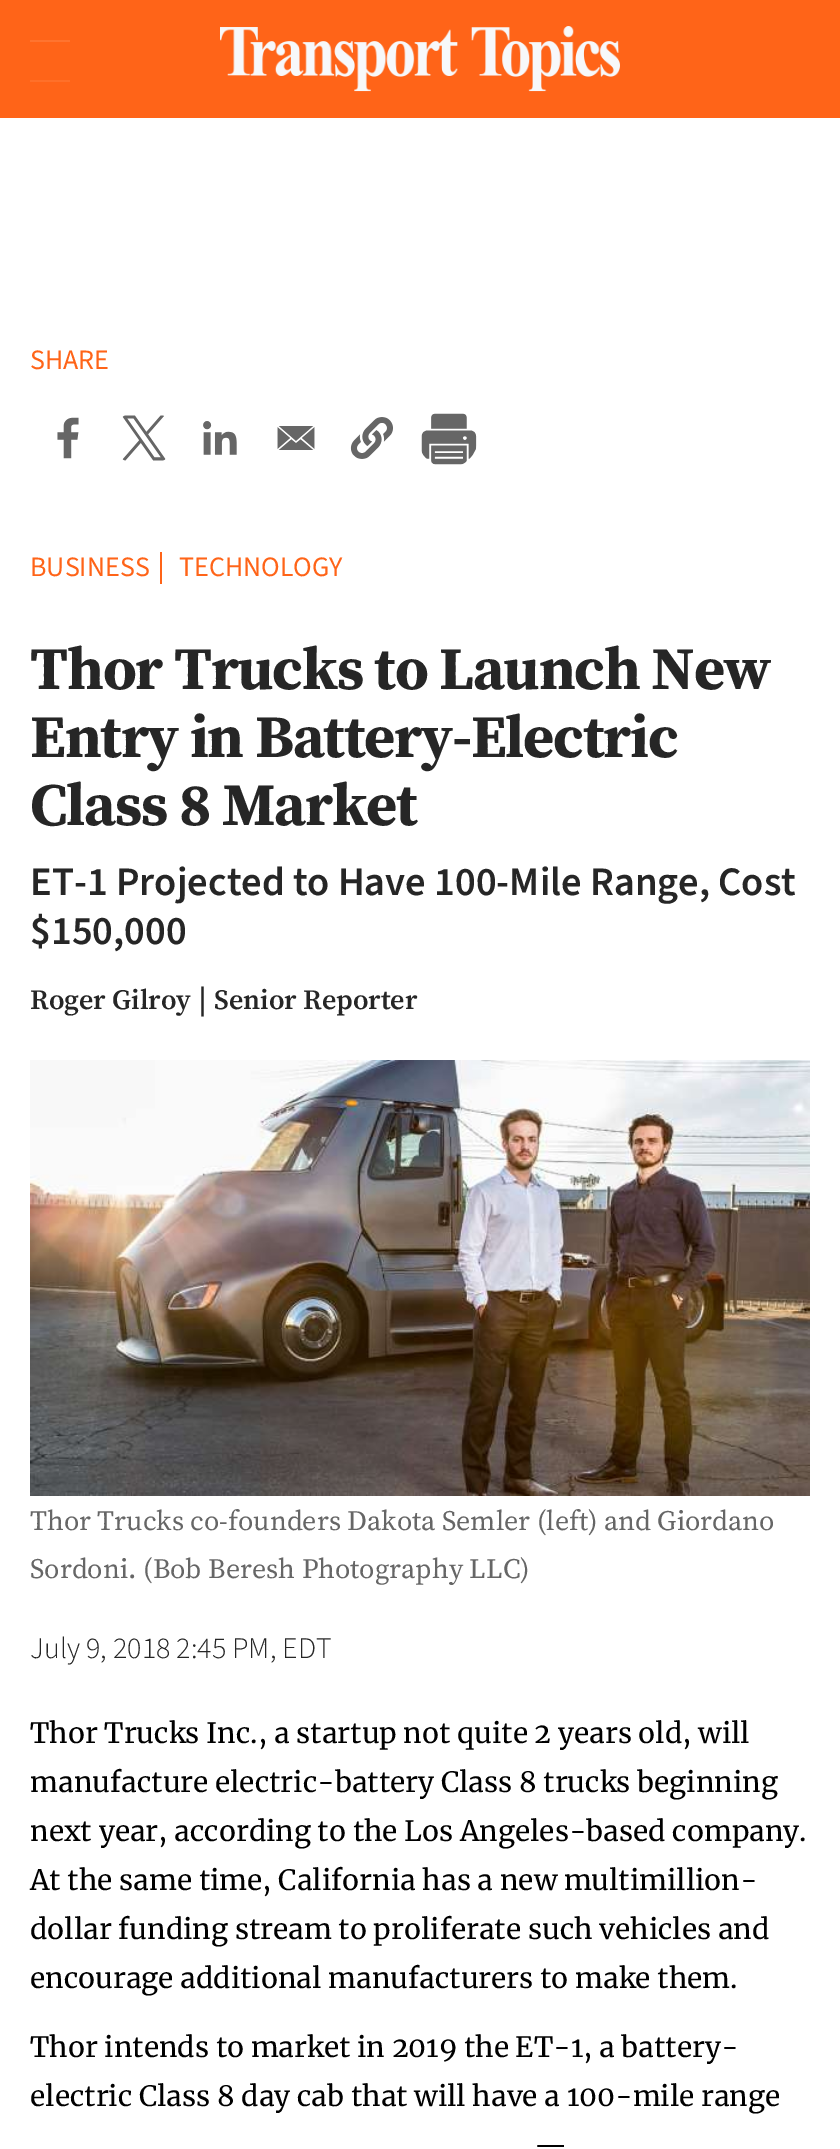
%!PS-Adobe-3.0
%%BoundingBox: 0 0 840 2149
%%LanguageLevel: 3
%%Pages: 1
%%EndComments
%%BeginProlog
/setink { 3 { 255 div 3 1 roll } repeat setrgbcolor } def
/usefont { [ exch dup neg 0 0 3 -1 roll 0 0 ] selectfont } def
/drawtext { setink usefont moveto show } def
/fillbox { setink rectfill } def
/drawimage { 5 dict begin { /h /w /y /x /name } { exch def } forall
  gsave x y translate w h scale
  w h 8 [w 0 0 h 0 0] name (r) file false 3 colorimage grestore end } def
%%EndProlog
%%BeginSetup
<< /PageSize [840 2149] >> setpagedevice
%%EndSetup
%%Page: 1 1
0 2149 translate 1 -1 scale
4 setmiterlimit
0 0 840 2149 255 255 255 fillbox
0 0 840 118 255 100 24 fillbox
(assets/img1.rgb) 220 26 400 66 drawimage
30 80 40 2 255 112 41 fillbox
30 40 40 2 255 116 47 fillbox
(SHARE) 30 369 /SourceSans3-Regular 28 255 100 24 drawtext
(assets/img2.rgb) 57 417 22 42 drawimage
(assets/img3.rgb) 122 415 44 46 drawimage
(assets/img4.rgb) 203 421 34 34 drawimage
(assets/img5.rgb) 277 426 38 24 drawimage
(assets/img6.rgb) 350 417 43 42 drawimage
(assets/img7.rgb) 421 413 56 52 drawimage
160 552 2 32 255 100 24 fillbox
(BUSINESS) 30 576 /SourceSans3-Regular 28 255 100 24 drawtext
(TECHNOLOGY) 179 576 /SourceSans3-Regular 28 255 100 24 drawtext
/SourceSerif4-Bold 60 usefont
38 38 38 setink
30 689 moveto -1.2 0 (Thor Trucks to Launch New) ashow
30 757 moveto -1.2 0 (Entry in Battery-Electric) ashow
30 825 moveto -1.2 0 (Class 8 Market) ashow
(ET-1 Projected to Have 100-Mile Range, Cost) 30 895 /SourceSans3-SemiBold 40.5 38 38 38 drawtext
($150,000) 30 944 /SourceSans3-SemiBold 40.5 38 38 38 drawtext
(Roger Gilroy) 30 1009 /SourceSerif4-SemiBold 28 38 38 38 drawtext
(|) 198 1009 /SourceSerif4-SemiBold 30 38 38 38 drawtext
(Senior Reporter) 214 1009 /SourceSerif4-SemiBold 28 38 38 38 drawtext
(assets/img8.rgb) 30 1060 780 436 drawimage
(Thor Trucks co-founders Dakota Semler \(left\) and Giordano) 30 1530 /SourceSerif4-Regular 28 102 102 102 drawtext
(Sordoni. \(Bob Beresh Photography LLC\)) 30 1578 /SourceSerif4-Regular 28 102 102 102 drawtext
(July 9, 2018 2:45 PM, EDT) 30 1658 /SourceSans3-Light 30 38 38 38 drawtext
(Thor Trucks Inc., a startup not quite 2 years old, will) 30 1743 /Merriweather-Regular 28 0 0 0 drawtext
(manufacture electric-battery Class 8 trucks beginning) 30 1792 /Merriweather-Regular 28 0 0 0 drawtext
(next year, according to the Los Angeles-based company.) 30 1841 /Merriweather-Regular 28 0 0 0 drawtext
(At the same time, California has a new multimillion-) 30 1890 /Merriweather-Regular 28 0 0 0 drawtext
(dollar funding stream to proliferate such vehicles and) 30 1939 /Merriweather-Regular 28 0 0 0 drawtext
(encourage additional manufacturers to make them.) 30 1988 /Merriweather-Regular 28 0 0 0 drawtext
(Thor intends to market in 2019 the ET-1, a battery-) 30 2057 /Merriweather-Regular 28 0 0 0 drawtext
(electric Class 8 day cab that will have a 100-mile range) 30 2106 /Merriweather-Regular 28 0 0 0 drawtext
(—) 534 2155 /Merriweather-Regular 28 0 0 0 drawtext
showpage
%%EOF
